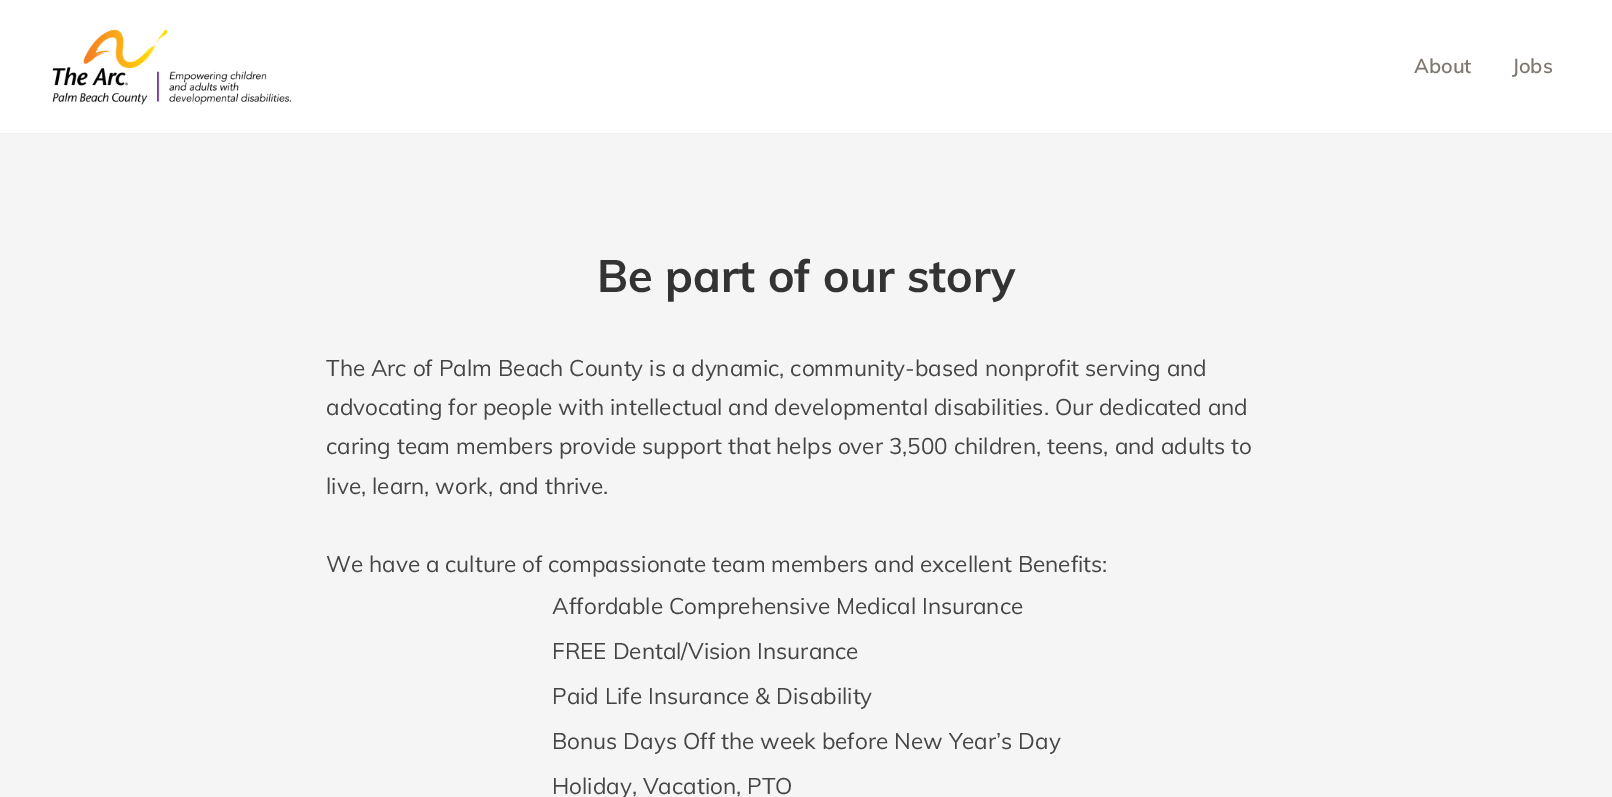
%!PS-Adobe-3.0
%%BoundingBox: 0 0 1612 797
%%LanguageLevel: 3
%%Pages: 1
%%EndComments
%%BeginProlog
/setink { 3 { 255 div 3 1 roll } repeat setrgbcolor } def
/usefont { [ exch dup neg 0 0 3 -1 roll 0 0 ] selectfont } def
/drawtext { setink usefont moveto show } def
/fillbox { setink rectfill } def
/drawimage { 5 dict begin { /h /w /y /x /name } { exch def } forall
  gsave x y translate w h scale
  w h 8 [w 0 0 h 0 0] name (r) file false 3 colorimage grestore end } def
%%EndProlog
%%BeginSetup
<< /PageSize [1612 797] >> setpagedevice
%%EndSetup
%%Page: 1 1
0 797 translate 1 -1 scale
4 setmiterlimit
0 0 1612 797 255 255 255 fillbox
0 133 1612 1 238 238 238 fillbox
(assets/img1.rgb) 52 29 239 76 drawimage
(About) 1414 73 /Muli-SemiBold 20 126 119 111 drawtext
(Jobs) 1512 73 /Muli-SemiBold 20 126 119 111 drawtext
0 134 1612 663 245 245 245 fillbox
(Be part of our story) 597 292 /Muli-Bold 45 51 51 51 drawtext
(The Arc of Palm Beach County is a dynamic, community-based nonprofit serving and) 326 376 /Muli-Regular 22.5 69 69 69 drawtext
(advocating for people with intellectual and developmental disabilities. Our dedicated and) 326 415 /Muli-Regular 22.5 69 69 69 drawtext
(caring team members provide support that helps over 3,500 children, teens, and adults to) 326 454 /Muli-Regular 22.5 69 69 69 drawtext
(live, learn, work, and thrive.) 326 494 /Muli-Regular 22.5 69 69 69 drawtext
(We have a culture of compassionate team members and excellent Benefits:) 326 572 /Muli-Regular 22.5 69 69 69 drawtext
(Affordable Comprehensive Medical Insurance) 552 614 /Muli-Regular 22.5 69 69 69 drawtext
(FREE Dental/Vision Insurance) 552 659 /Muli-Regular 22.5 69 69 69 drawtext
(Paid Life Insurance & Disability) 552 704 /Muli-Regular 22.5 69 69 69 drawtext
(Bonus Days Off the week before New Year’s Day) 552 749 /Muli-Regular 22.5 69 69 69 drawtext
(Holiday, Vacation, PTO) 552 794 /Muli-Regular 22.5 69 69 69 drawtext
showpage
%%EOF
